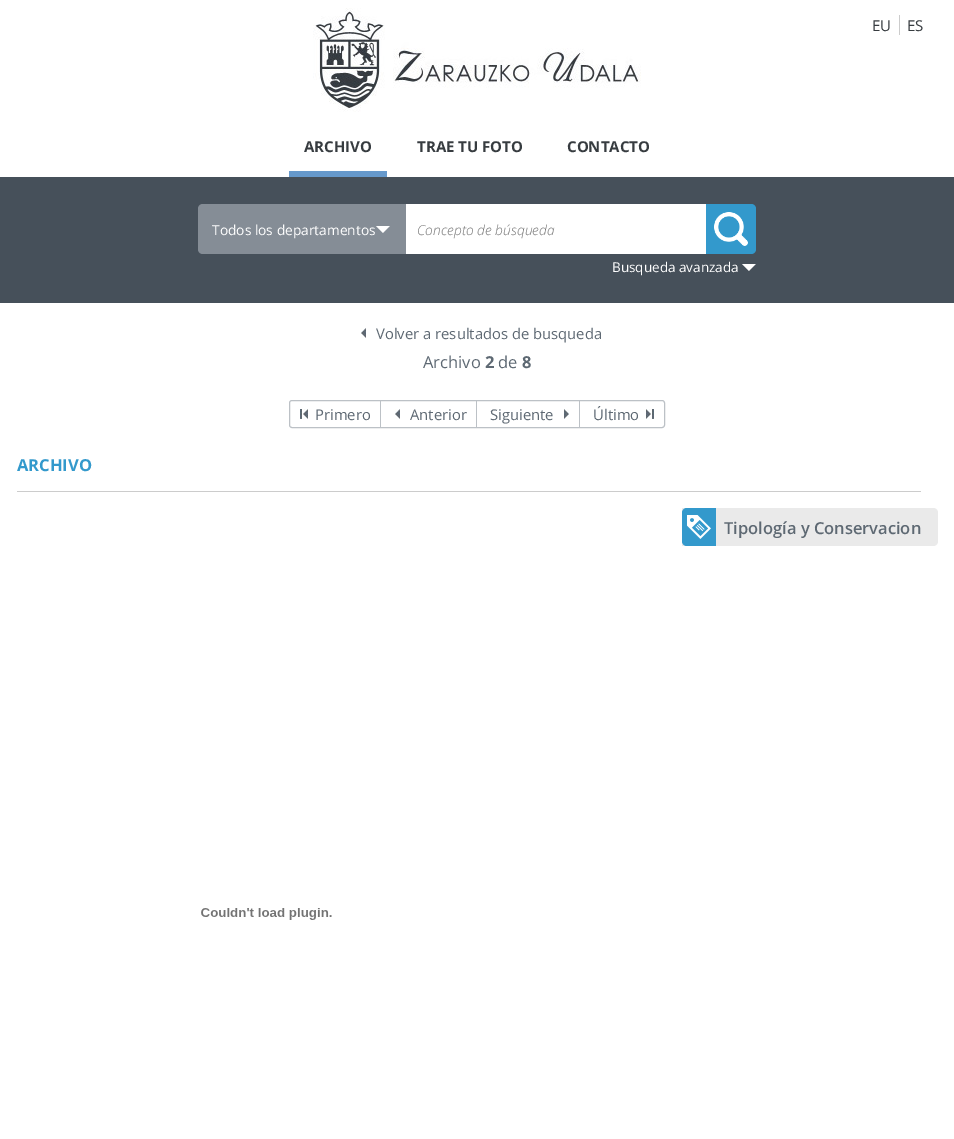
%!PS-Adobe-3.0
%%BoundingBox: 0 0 954 1139
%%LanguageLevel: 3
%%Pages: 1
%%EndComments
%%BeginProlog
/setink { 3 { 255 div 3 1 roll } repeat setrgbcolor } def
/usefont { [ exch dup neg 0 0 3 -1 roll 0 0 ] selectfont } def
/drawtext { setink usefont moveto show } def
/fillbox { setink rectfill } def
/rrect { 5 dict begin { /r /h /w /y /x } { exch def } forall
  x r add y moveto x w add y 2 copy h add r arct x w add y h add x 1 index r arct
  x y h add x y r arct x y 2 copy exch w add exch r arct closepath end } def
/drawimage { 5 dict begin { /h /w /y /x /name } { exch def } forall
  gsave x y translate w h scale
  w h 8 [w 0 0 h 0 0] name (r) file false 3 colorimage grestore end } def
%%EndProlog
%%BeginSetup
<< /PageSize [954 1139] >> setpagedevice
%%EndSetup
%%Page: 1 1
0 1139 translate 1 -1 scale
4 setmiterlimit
0 0 954 1139 255 255 255 fillbox
(assets/img1.rgb) 313 8 328 104 drawimage
899 15 1 20 204 204 204 fillbox
(EU) 872 31 /OpenSans-Regular 15 55 60 64 drawtext
(ES) 907 31 /OpenSans-Regular 15 55 60 64 drawtext
289 171 98 6 102 153 204 fillbox
(ARCHIVO) 304 152 /OpenSans-Bold 15 55 60 64 drawtext
(TRAE TU FOTO) 417 152 /OpenSans-Bold 15 55 60 64 drawtext
(CONTACTO) 567 152 /OpenSans-Bold 15 55 60 64 drawtext
0 177 954 126 70 80 90 fillbox
133 141 150 setink
203 204 moveto 406 204 lineto 406 254 lineto 203 254 lineto 200 254 198 252 198 249 curveto 198 209 lineto 198 206 200 204 203 204 curveto closepath fill
(assets/img2.rgb) 376 226 14 7 drawimage
(Todos los departamentos) 212 235 /OpenSans-Regular 13.75 255 255 255 drawtext
406 204 300 50 255 255 255 fillbox
(Concepto de búsqueda) 417 235 /OpenSans-LightItalic 13.75 117 117 117 drawtext
51 153 204 setink
706 204 moveto 751 204 lineto 754 204 756 206 756 209 curveto 756 249 lineto 756 252 754 254 751 254 curveto 706 254 lineto closepath fill
(assets/img3.rgb) 714 212 34 34 drawimage
(assets/img4.rgb) 742 264 14 7 drawimage
(Busqueda avanzada) 612 272 /OpenSans-Regular 13.5 255 255 255 drawtext
(assets/img5.rgb) 361 328 5 10 drawimage
(Volver a resultados de busqueda) 376 339 /OpenSans-Regular 14.8 94 105 115 drawtext
(Archivo) 423 368 /OpenSans-Regular 16.5 94 105 115 drawtext
(2) 485 368 /OpenSans-Bold 16.5 94 105 115 drawtext
(de) 498 368 /OpenSans-Regular 16.5 94 105 115 drawtext
(8) 522 368 /OpenSans-Bold 16.5 94 105 115 drawtext
188 193 198 setink
289.5 400.5 375 27 2.5 rrect stroke
(assets/img6.rgb) 300 409 8 10 drawimage
380 401 1 26 188 193 198 fillbox
(Primero) 315 420 /OpenSans-Regular 14.8 94 105 115 drawtext
(assets/img5.rgb) 395 409 5 10 drawimage
476 401 1 26 188 193 198 fillbox
(Anterior) 410 420 /OpenSans-Regular 14.8 94 105 115 drawtext
(assets/img7.rgb) 564 409 5 10 drawimage
579 401 1 26 188 193 198 fillbox
(Siguiente) 490 420 /OpenSans-Regular 14.8 94 105 115 drawtext
(assets/img8.rgb) 646 409 8 10 drawimage
(Último) 593 420 /OpenSans-Regular 14.8 94 105 115 drawtext
17 491 904 1 204 204 204 fillbox
(ARCHIVO) 17 471 /OpenSans-Bold 16.5 51 153 204 drawtext
234 234 234 setink
682 508 moveto 933 508 lineto 936 508 938 510 938 513 curveto 938 541 lineto 938 544 936 546 933 546 curveto 682 546 lineto closepath fill
51 153 204 setink
687 508 moveto 716 508 lineto 716 546 lineto 687 546 lineto 684 546 682 544 682 541 curveto 682 513 lineto 682 510 684 508 687 508 curveto closepath fill
(assets/img9.rgb) 687 515 24 24 drawimage
(Tipología y Conservacion) 724 534 /OpenSans-SemiBold 16.5 94 105 115 drawtext
(assets/img10.rgb) 201 908 131 12 drawimage
showpage
%%EOF
